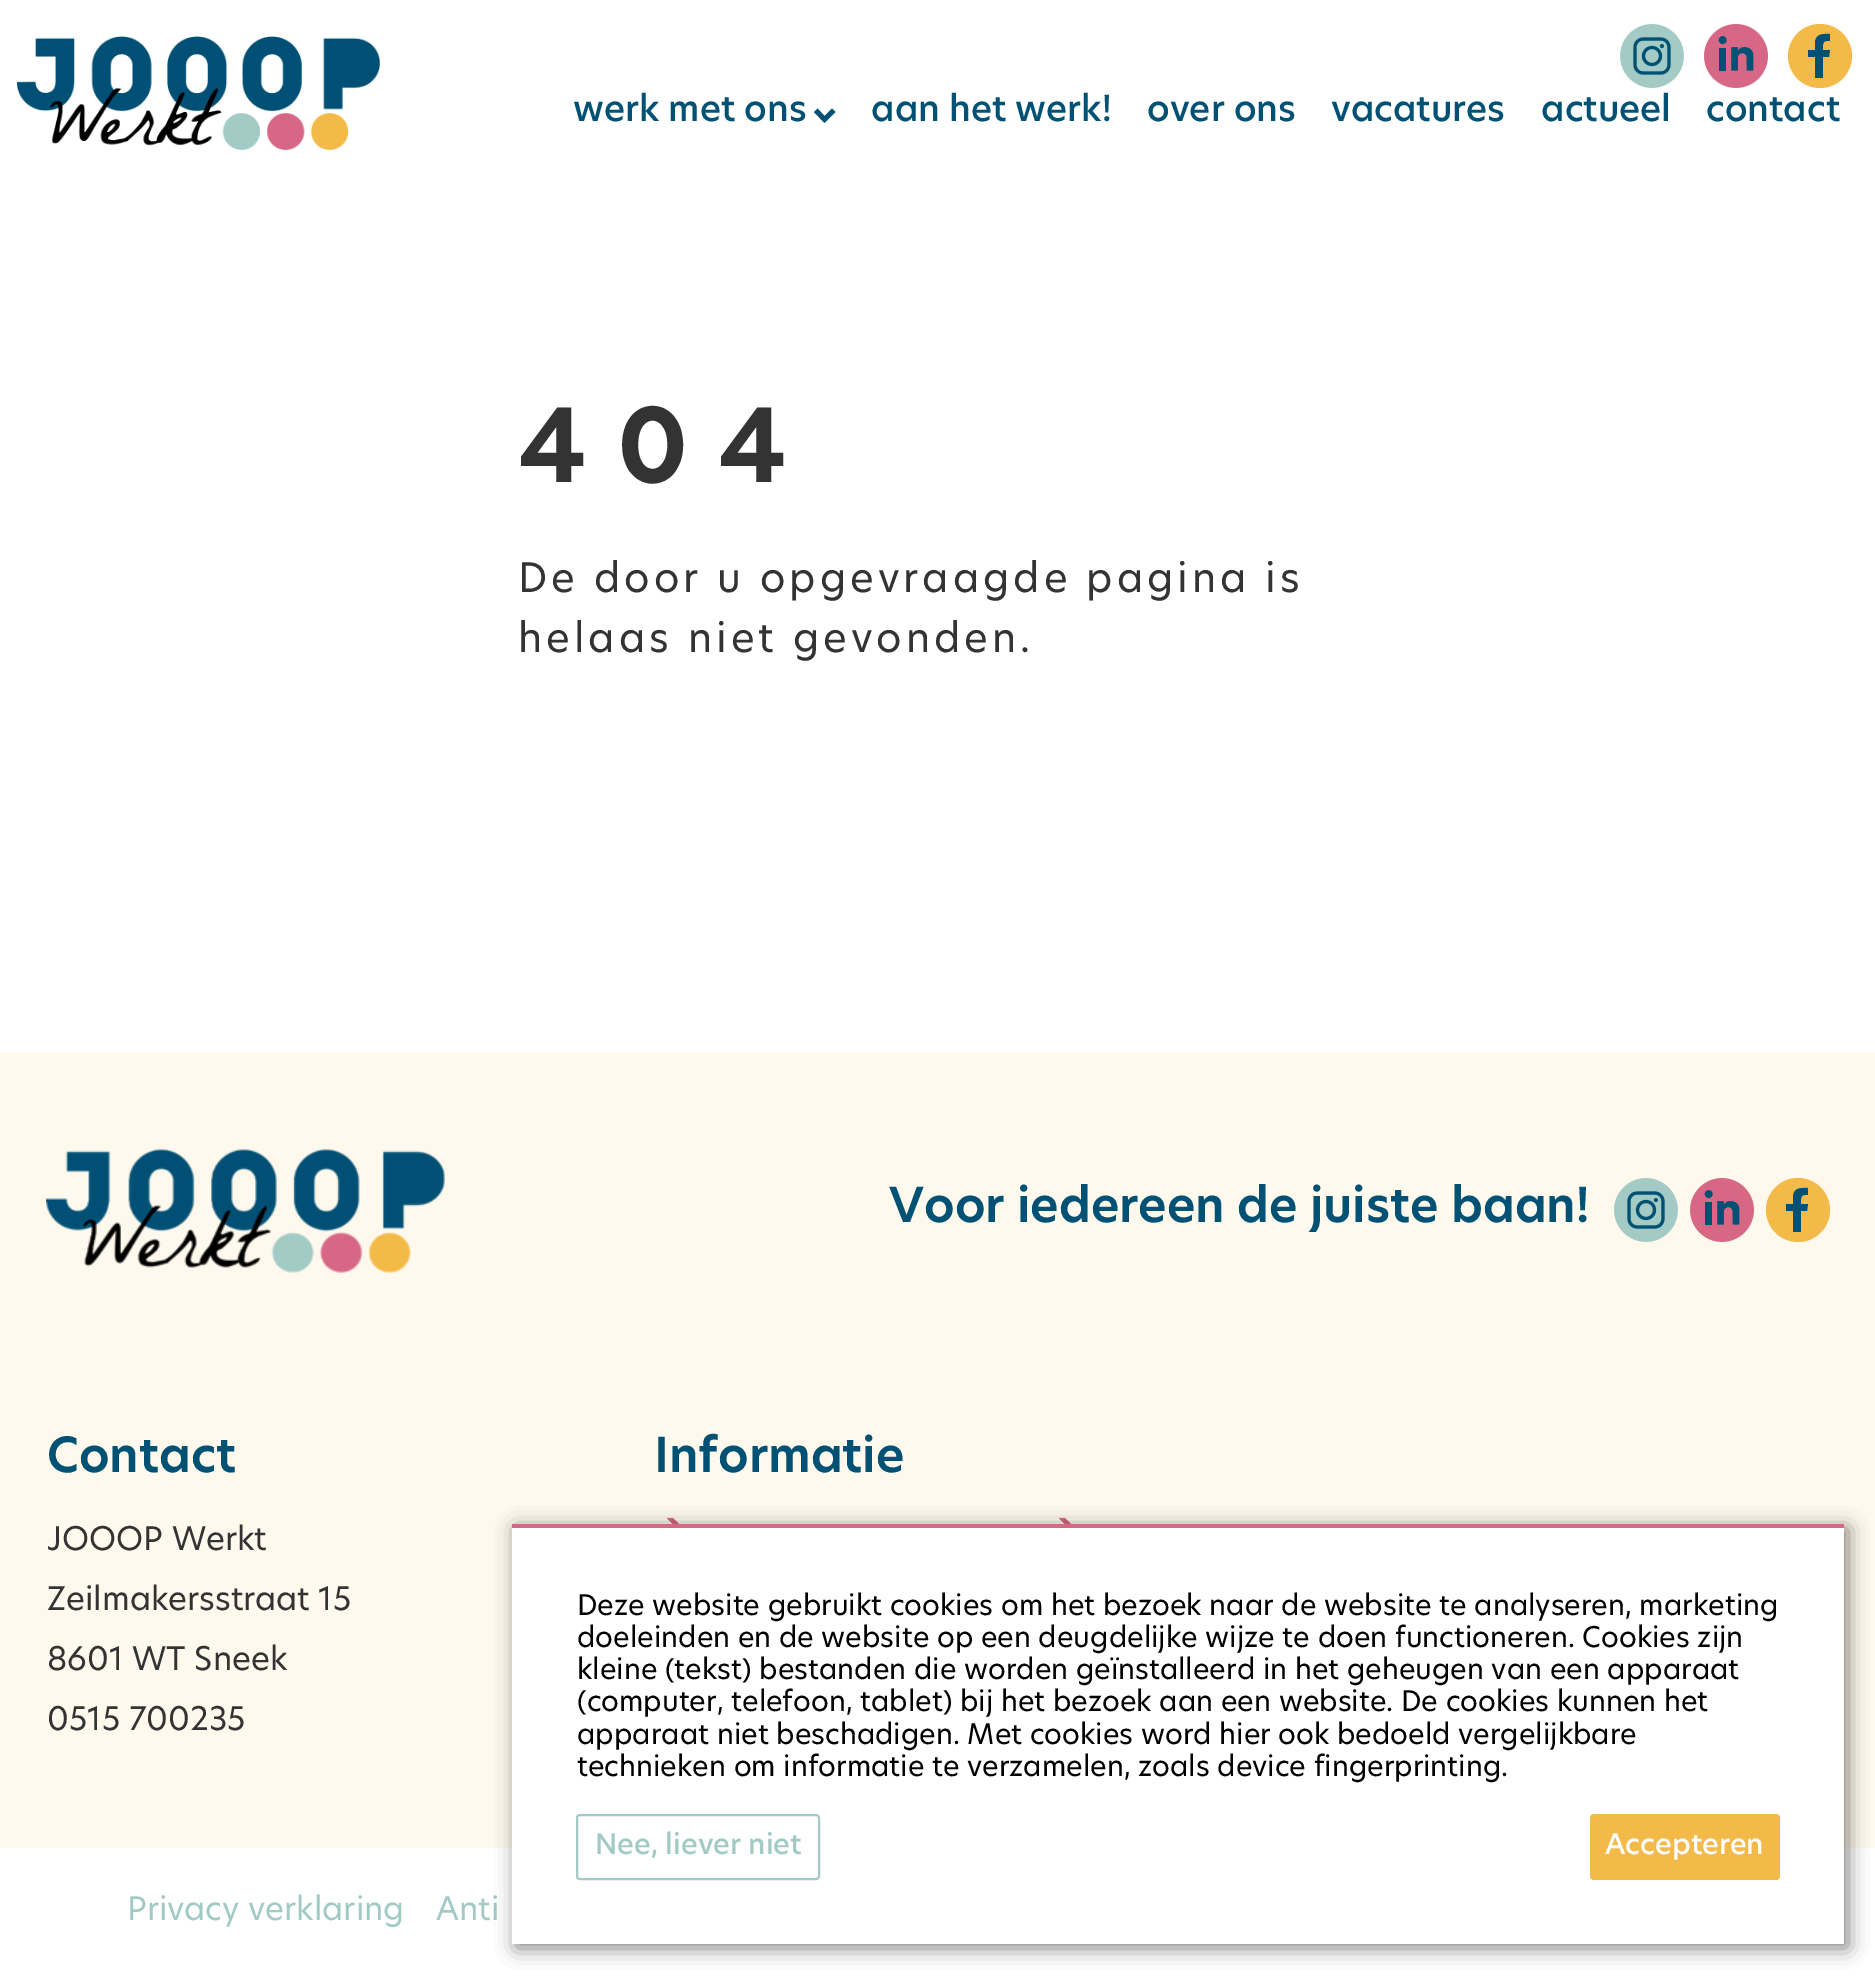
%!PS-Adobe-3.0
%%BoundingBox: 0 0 1875 1976
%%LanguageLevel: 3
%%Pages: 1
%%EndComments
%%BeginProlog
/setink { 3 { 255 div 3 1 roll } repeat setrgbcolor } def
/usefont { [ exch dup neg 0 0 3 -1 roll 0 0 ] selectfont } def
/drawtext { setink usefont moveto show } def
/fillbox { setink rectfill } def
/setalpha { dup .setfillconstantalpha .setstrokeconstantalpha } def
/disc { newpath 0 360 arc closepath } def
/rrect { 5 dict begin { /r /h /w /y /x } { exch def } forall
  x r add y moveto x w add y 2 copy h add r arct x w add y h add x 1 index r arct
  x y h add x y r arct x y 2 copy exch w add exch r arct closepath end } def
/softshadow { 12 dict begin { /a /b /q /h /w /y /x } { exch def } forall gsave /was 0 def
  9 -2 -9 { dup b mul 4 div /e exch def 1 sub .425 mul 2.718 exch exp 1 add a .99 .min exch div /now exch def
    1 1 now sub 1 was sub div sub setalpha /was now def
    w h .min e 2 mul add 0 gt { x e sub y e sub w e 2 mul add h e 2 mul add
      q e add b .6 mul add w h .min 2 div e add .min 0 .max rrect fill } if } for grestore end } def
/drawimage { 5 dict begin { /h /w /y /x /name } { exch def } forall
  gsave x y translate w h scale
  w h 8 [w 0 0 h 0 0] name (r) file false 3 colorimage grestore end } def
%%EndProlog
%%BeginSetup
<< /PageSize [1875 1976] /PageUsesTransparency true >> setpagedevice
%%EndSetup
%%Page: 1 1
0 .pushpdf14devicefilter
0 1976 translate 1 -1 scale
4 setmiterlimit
0 0 1875 1976 255 255 255 fillbox
(assets/img1.rgb) 17 36 363 114 drawimage
(assets/img2.rgb) 1620 24 64 64 drawimage
(assets/img3.rgb) 1704 24 64 64 drawimage
243 185 73 setink
1820 56 32 disc fill
0 81 116 setink
1827 41 moveto 1830 41 lineto 1830 34 lineto 1824 34 1816 33 1815 42 curveto 1815 50 lineto 1808 50 lineto 1808 57 lineto 1815 57 lineto 1815 78 lineto 1823 78 lineto 1823 57 lineto 1829 57 lineto 1830 50 lineto 1823 50 lineto 1823 46 1822 41 1827 41 curveto fill
(werk met ons) 573 121 /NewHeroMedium-Medium 35.25 0 81 116 drawtext
824.5 123 moveto 814 112 lineto 817.5 108.5 lineto 824.5 116 lineto 832 108.5 lineto 835.5 112 lineto closepath fill
(aan het werk!) 871 121 /NewHeroMedium-Medium 35.25 0 81 116 drawtext
(over ons) 1147 121 /NewHeroMedium-Medium 35.25 0 81 116 drawtext
(vacatures) 1331 121 /NewHeroMedium-Medium 35.25 0 81 116 drawtext
(actueel) 1541 121 /NewHeroMedium-Medium 35.25 0 81 116 drawtext
(contact) 1706 121 /NewHeroMedium-Medium 35.25 0 81 116 drawtext
/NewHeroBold-Bold 100 usefont
51 51 51 setink
518 482 moveto 30 0 (404) ashow
/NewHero-Regular 40 usefont
518 592 moveto 4 0 (De door u opgevraagde pagina is) ashow
518 652 moveto 4 0 (helaas niet gevonden.) ashow
0 1052 1875 796 255 249 237 fillbox
(assets/img4.rgb) 46 1149 399 124 drawimage
(Voor iedereen de juiste baan!) 889 1222 /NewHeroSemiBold-SemiBold 47.3 0 81 116 drawtext
(assets/img5.rgb) 1614 1178 64 64 drawimage
(assets/img6.rgb) 1690 1178 64 64 drawimage
243 185 73 setink
1798 1210 32 disc fill
0 81 116 setink
1805 1195 moveto 1808 1195 lineto 1808 1188 lineto 1802 1188 1794 1187 1793 1196 curveto 1793 1204 lineto 1786 1204 lineto 1786 1211 lineto 1793 1211 lineto 1793 1232 lineto 1801 1232 lineto 1801 1211 lineto 1807 1211 lineto 1808 1204 lineto 1801 1204 lineto 1801 1200 1800 1195 1805 1195 curveto fill
(Contact) 47 1472 /NewHeroSemiBold-SemiBold 47.3 0 81 116 drawtext
(JOOOP Werkt) 47 1550 /NewHero-Regular 32 51 51 51 drawtext
(Zeilmakersstraat 15) 47 1610 /NewHero-Regular 32 51 51 51 drawtext
(8601 WT Sneek) 47 1670 /NewHero-Regular 32 51 51 51 drawtext
(0515 700235) 47 1730 /NewHero-Regular 32 51 51 51 drawtext
(Informatie) 654 1472 /NewHeroSemiBold-SemiBold 47.3 0 81 116 drawtext
(assets/img7.rgb) 667 1517 13 7 drawimage
(assets/img7.rgb) 1059 1517 13 7 drawimage
(Privacy verklaring) 127 1920 /NewHero-Regular 32 162 202 197 drawtext
(Anti) 436 1920 /NewHero-Regular 32 162 202 197 drawtext
0 0 0 setink
516 1528 1332 420 0 10 0.5 softshadow
512 1528 1332 416 255 255 255 fillbox
512 1524 1332 4 214 103 133 fillbox
(Deze website gebruikt cookies om het bezoek naar de website te analyseren, marketing) 577 1615 /NewHero-Regular 28 0 0 0 drawtext
(doeleinden en de website op een deugdelijke wijze te doen functioneren. Cookies zijn) 577 1647 /NewHero-Regular 28 0 0 0 drawtext
(kleine \(tekst\) bestanden die worden geïnstalleerd in het geheugen van een apparaat) 577 1679 /NewHero-Regular 28 0 0 0 drawtext
(\(computer, telefoon, tablet\) bij het bezoek aan een website. De cookies kunnen het) 577 1711 /NewHero-Regular 28 0 0 0 drawtext
(apparaat niet beschadigen. Met cookies word hier ook bedoeld vergelijkbare) 577 1744 /NewHero-Regular 28 0 0 0 drawtext
(technieken om informatie te verzamelen, zoals device fingerprinting.) 577 1776 /NewHero-Regular 28 0 0 0 drawtext
162 202 197 setink
2 setlinewidth
577 1815 242 64 3 rrect stroke
(Nee, liever niet) 595 1854 /NewHeroMedium-Medium 28 162 202 197 drawtext
243 185 73 setink
1590 1814 190 66 4 rrect fill
(Accepteren) 1605 1854 /NewHeroMedium-Medium 28 255 255 255 drawtext
.poppdf14devicefilter showpage
%%EOF
